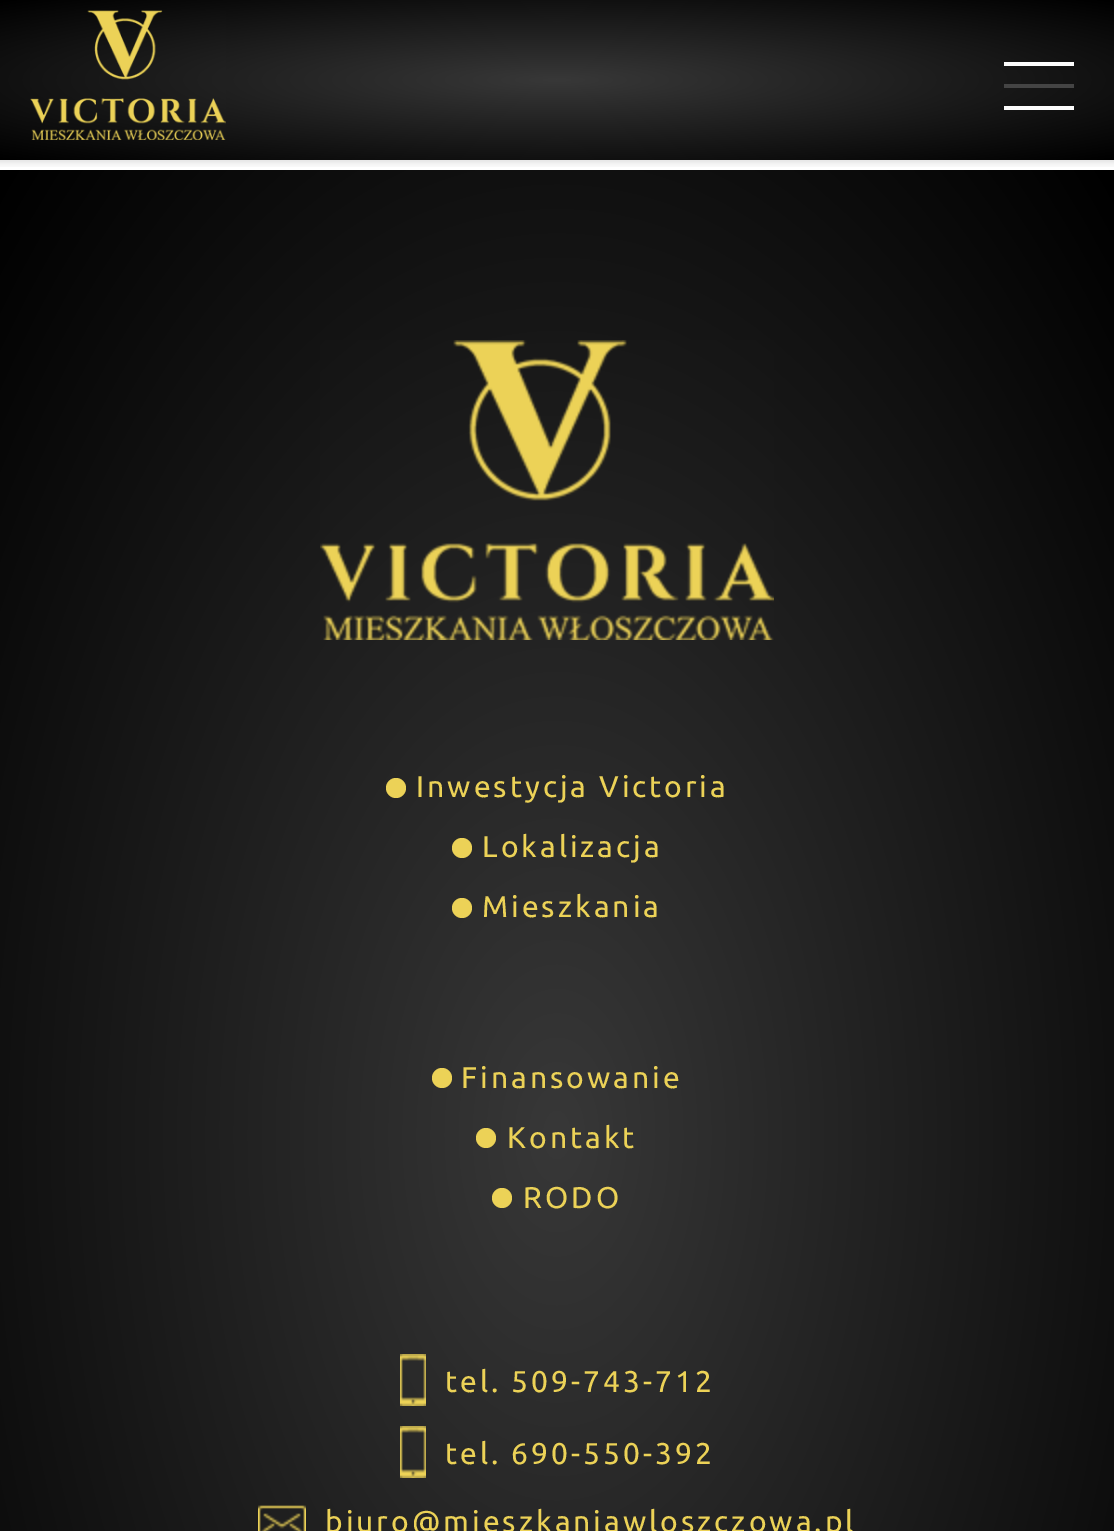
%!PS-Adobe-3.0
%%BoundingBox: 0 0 1114 1531
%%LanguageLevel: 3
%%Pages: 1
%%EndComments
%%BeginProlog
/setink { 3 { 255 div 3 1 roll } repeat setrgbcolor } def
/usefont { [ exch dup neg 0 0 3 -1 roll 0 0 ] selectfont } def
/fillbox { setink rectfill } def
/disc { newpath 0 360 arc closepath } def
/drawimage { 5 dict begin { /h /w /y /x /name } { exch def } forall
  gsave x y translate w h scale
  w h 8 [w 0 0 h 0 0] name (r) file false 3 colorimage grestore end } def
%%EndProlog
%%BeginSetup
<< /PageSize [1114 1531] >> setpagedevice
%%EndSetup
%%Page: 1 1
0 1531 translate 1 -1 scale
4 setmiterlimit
0 0 1114 1531 255 255 255 fillbox
gsave 0 0 moveto 1114 0 lineto 1114 160 lineto 0 160 lineto closepath clip newpath 557 80 translate 788 113 scale
<< /ShadingType 3 /ColorSpace /DeviceRGB /Coords [0 0 0 0 0 1] /Extend [true true] /Function << /FunctionType 2 /Domain [0 1] /C0 [0.22 0.22 0.22] /C1 [0 0 0] /N 1 >> >> shfill grestore
(assets/img1.rgb) 30 10 196 130 drawimage
1004 84 70 4 68 68 68 fillbox
1004 62 70 4 252 252 252 fillbox
1004 106 70 4 252 252 252 fillbox
(assets/img2.rgb) 0 160 1114 7 drawimage
gsave 0 170 moveto 1114 170 lineto 1114 1531 lineto 0 1531 lineto closepath clip newpath 557 1135 translate 788 1365 scale
<< /ShadingType 3 /ColorSpace /DeviceRGB /Coords [0 0 0 0 0 1] /Extend [true true] /Function << /FunctionType 2 /Domain [0 1] /C0 [0.22 0.22 0.22] /C1 [0 0 0] /N 1 >> >> shfill grestore
(assets/img3.rgb) 320 340 454 300 drawimage
236 210 87 setink
396 788 10 disc fill
/Ubuntu-Regular 30 usefont
416 797 moveto 3 0 (Inwestycja Victoria) ashow
462 848 10 disc fill
482 857 moveto 3 0 (Lokalizacja) ashow
462 908 10 disc fill
482 917 moveto 3 0 (Mieszkania) ashow
442 1078 10 disc fill
461 1088 moveto 3 0 (Finansowanie) ashow
486 1138 10 disc fill
507 1148 moveto 3 0 (Kontakt) ashow
502 1198 10 disc fill
523 1208 moveto 3 0 (RODO) ashow
(assets/img4.rgb) 400 1354 26 52 drawimage
445 1392 moveto 3 0 (tel. 509-743-712) ashow
(assets/img5.rgb) 400 1426 26 52 drawimage
445 1464 moveto 3 0 (tel. 690-550-392) ashow
(assets/img6.rgb) 258 1505 48 26 drawimage
325 1532 moveto 3 0 (biuro@mieszkaniawloszczowa.pl) ashow
showpage
%%EOF
